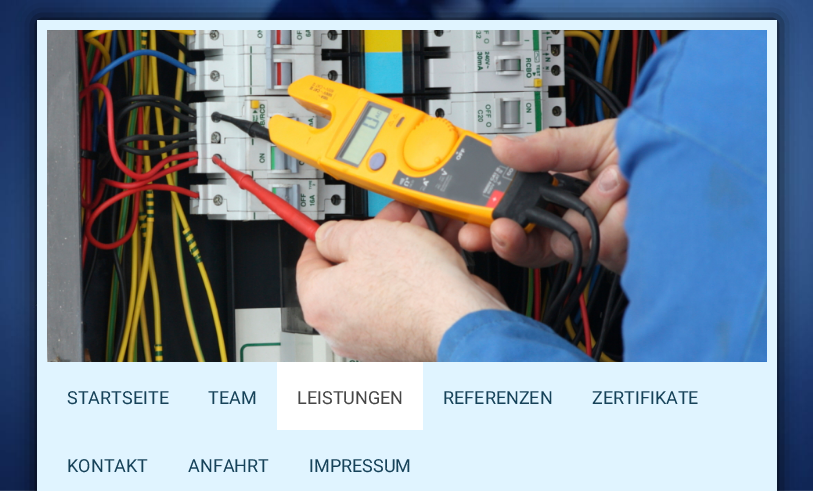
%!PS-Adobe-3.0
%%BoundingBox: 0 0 813 491
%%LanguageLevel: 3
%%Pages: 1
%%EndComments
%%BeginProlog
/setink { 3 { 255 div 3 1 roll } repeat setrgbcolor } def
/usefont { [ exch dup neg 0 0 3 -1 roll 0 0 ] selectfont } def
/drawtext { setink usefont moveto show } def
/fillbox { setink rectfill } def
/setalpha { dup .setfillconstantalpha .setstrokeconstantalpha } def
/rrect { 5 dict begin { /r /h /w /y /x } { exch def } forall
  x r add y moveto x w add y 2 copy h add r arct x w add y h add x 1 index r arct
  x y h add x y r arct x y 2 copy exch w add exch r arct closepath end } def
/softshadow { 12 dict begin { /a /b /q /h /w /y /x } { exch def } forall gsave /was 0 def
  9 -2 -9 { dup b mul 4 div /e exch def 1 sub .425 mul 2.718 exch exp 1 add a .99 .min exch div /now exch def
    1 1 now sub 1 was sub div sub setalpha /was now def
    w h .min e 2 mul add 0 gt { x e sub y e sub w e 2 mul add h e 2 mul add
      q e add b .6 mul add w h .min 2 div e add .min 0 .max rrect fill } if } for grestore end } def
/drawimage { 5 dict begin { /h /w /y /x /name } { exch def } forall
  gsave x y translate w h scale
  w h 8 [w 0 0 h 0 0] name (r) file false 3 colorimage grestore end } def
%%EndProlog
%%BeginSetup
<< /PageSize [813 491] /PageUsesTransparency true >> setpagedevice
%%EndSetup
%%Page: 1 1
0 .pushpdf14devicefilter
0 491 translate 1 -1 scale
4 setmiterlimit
0 0 813 491 255 255 255 fillbox
(assets/img1.rgb) 0 0 813 491 drawimage
0 0 0 setink
37 20 740 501 0 10 1 softshadow
37 20 740 471 224 244 255 fillbox
(assets/img2.rgb) 47 30 720 332 drawimage
(STARTSEITE) 67 404 /Roboto-Regular 18 22 66 89 drawtext
(TEAM) 208 404 /Roboto-Regular 18 22 66 89 drawtext
277 362 146 68 255 255 255 fillbox
(LEISTUNGEN) 297 404 /Roboto-Regular 18 71 71 71 drawtext
(REFERENZEN) 443 404 /Roboto-Regular 18 22 66 89 drawtext
(ZERTIFIKATE) 592 404 /Roboto-Regular 18 22 66 89 drawtext
(KONTAKT) 67 472 /Roboto-Regular 18 22 66 89 drawtext
(ANFAHRT) 188 472 /Roboto-Regular 18 22 66 89 drawtext
(IMPRESSUM) 309 472 /Roboto-Regular 18 22 66 89 drawtext
.poppdf14devicefilter showpage
%%EOF
